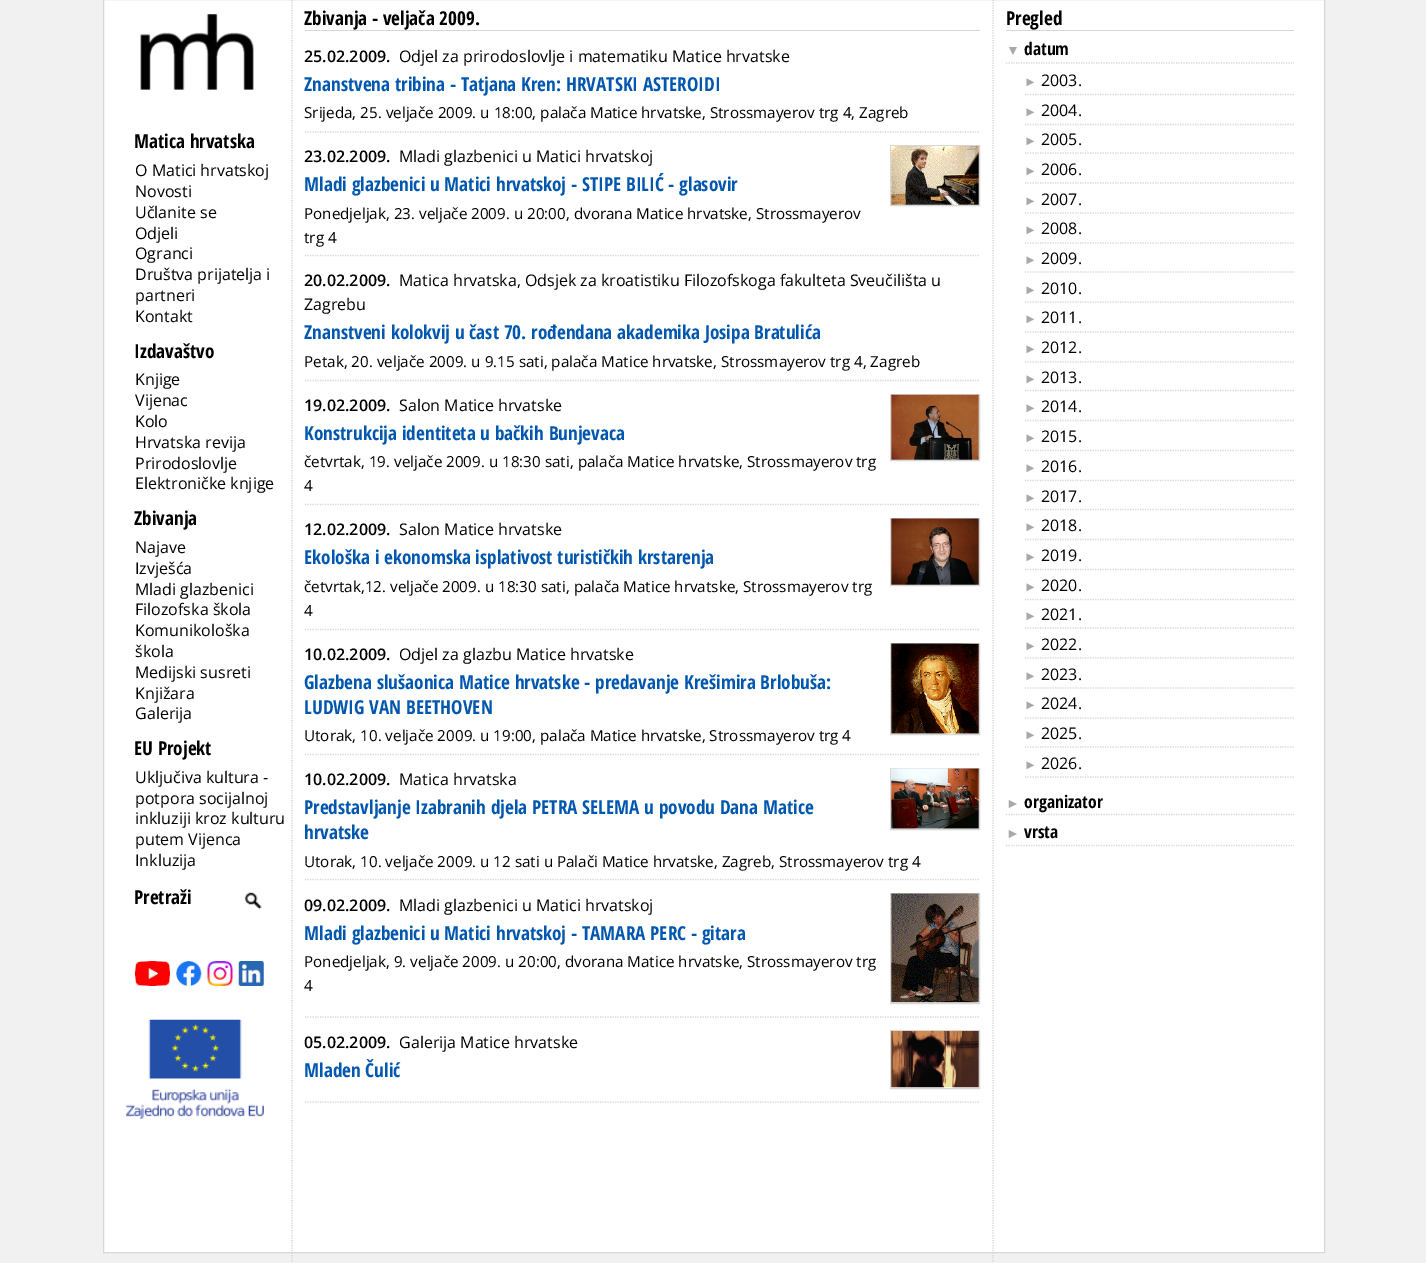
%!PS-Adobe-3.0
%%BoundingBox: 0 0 1426 1263
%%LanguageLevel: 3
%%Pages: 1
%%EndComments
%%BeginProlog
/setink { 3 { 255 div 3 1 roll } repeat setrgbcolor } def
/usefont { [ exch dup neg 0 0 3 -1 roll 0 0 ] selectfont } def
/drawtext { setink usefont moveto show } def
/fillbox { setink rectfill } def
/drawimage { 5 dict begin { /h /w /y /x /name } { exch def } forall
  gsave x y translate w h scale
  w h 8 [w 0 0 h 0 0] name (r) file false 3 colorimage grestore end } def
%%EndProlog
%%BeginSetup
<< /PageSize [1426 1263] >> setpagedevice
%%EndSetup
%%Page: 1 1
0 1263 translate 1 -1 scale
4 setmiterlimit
0 0 1426 1263 241 241 241 fillbox
255 255 255 setink
103.5 -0.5 moveto 1324.5 -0.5 lineto 1324.5 1252.5 lineto 103.5 1252.5 lineto closepath gsave fill grestore
215 215 215 setink
stroke
(assets/img1.rgb) 140 14 114 76 drawimage
(Matica hrvatska) 134 148 /OpenSansCondensed-Bold 19.2 0 0 0 drawtext
(O Matici hrvatskoj) 135 176 /OpenSans-Regular 16 0 0 0 drawtext
(Novosti) 135 197 /OpenSans-Regular 16 0 0 0 drawtext
(Učlanite se) 135 218 /OpenSans-Regular 16 0 0 0 drawtext
(Odjeli) 135 239 /OpenSans-Regular 16 0 0 0 drawtext
(Ogranci) 135 259 /OpenSans-Regular 16 0 0 0 drawtext
(Društva prijatelja i) 135 280 /OpenSans-Regular 16 0 0 0 drawtext
(partneri) 135 301 /OpenSans-Regular 16 0 0 0 drawtext
(Kontakt) 135 322 /OpenSans-Regular 16 0 0 0 drawtext
(Izdavaštvo) 134 358 /OpenSansCondensed-Bold 19.2 0 0 0 drawtext
(Knjige) 135 385 /OpenSans-Regular 16 0 0 0 drawtext
(Vijenac) 135 406 /OpenSans-Regular 16 0 0 0 drawtext
(Kolo) 135 427 /OpenSans-Regular 16 0 0 0 drawtext
(Hrvatska revija) 135 448 /OpenSans-Regular 16 0 0 0 drawtext
(Prirodoslovlje) 135 469 /OpenSans-Regular 16 0 0 0 drawtext
(Elektroničke knjige) 135 489 /OpenSans-Regular 16 0 0 0 drawtext
(Zbivanja) 134 525 /OpenSansCondensed-Bold 19.2 0 0 0 drawtext
(Najave) 135 553 /OpenSans-Regular 16 0 0 0 drawtext
(Izvješća) 135 574 /OpenSans-Regular 16 0 0 0 drawtext
(Mladi glazbenici) 135 595 /OpenSans-Regular 16 0 0 0 drawtext
(Filozofska škola) 135 615 /OpenSans-Regular 16 0 0 0 drawtext
(Komunikološka) 135 636 /OpenSans-Regular 16 0 0 0 drawtext
(škola) 135 657 /OpenSans-Regular 16 0 0 0 drawtext
(Medijski susreti) 135 678 /OpenSans-Regular 16 0 0 0 drawtext
(Knjižara) 135 699 /OpenSans-Regular 16 0 0 0 drawtext
(Galerija) 135 719 /OpenSans-Regular 16 0 0 0 drawtext
(EU Projekt) 134 755 /OpenSansCondensed-Bold 19.2 0 0 0 drawtext
(Uključiva kultura -) 135 783 /OpenSans-Regular 16 0 0 0 drawtext
(potpora socijalnoj) 135 804 /OpenSans-Regular 16 0 0 0 drawtext
(inkluziji kroz kulturu) 135 824 /OpenSans-Regular 16 0 0 0 drawtext
(putem Vijenca) 135 845 /OpenSans-Regular 16 0 0 0 drawtext
(Inkluzija) 135 866 /OpenSans-Regular 16 0 0 0 drawtext
(Pretraži) 134 904 /OpenSansCondensed-Bold 19.2 0 0 0 drawtext
(assets/img2.rgb) 244 892 18 18 drawimage
(assets/img3.rgb) 135 961 35 25 drawimage
(assets/img4.rgb) 176 961 26 25 drawimage
(assets/img5.rgb) 207 961 26 25 drawimage
(assets/img6.rgb) 238 961 26 25 drawimage
(assets/img7.rgb) 126 1019 138 100 drawimage
215 215 215 setink
1.2 setlinewidth
[1.25 1.25] 0 setdash
993 0 moveto 993 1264 lineto stroke
292 0 moveto 292 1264 lineto stroke
305 30 675 1 215 215 215 fillbox
(Zbivanja - veljača 2009.) 304 25 /OpenSansCondensed-Bold 19.2 0 0 0 drawtext
215 215 215 setink
305 132 moveto 980 132 lineto stroke
(25.02.2009.) 304 62 /OpenSans-SemiBold 16 0 0 0 drawtext
(Odjel za prirodoslovlje i matematiku Matice hrvatske) 399 62 /OpenSans-Regular 16 0 0 0 drawtext
(Znanstvena tribina - Tatjana Kren: HRVATSKI ASTEROIDI) 304 91 /OpenSansCondensed-Bold 19.2 0 87 175 drawtext
(Srijeda, 25. veljače 2009. u 18:00, palača Matice hrvatske, Strossmayerov trg 4, Zagreb) 304 118 /OpenSans-Regular 15.2 0 0 0 drawtext
215 215 215 setink
305 255.5 moveto 980 255.5 lineto stroke
(23.02.2009.) 304 162 /OpenSans-SemiBold 16 0 0 0 drawtext
(Mladi glazbenici u Matici hrvatskoj) 399 162 /OpenSans-Regular 16 0 0 0 drawtext
215 215 215 setink
1 setlinewidth
[] 0 setdash
890.5 145.5 89 60 rectstroke
(assets/img8.rgb) 891 146 88 59 drawimage
(Mladi glazbenici u Matici hrvatskoj - STIPE BILIĆ - glasovir) 304 191 /OpenSansCondensed-Bold 19.2 0 87 175 drawtext
(Ponedjeljak, 23. veljače 2009. u 20:00, dvorana Matice hrvatske, Strossmayerov) 304 219 /OpenSans-Regular 15.2 0 0 0 drawtext
(trg 4) 304 243 /OpenSans-Regular 15.2 0 0 0 drawtext
215 215 215 setink
1.2 setlinewidth
[1.25 1.25] 0 setdash
305 380.5 moveto 980 380.5 lineto stroke
(Matica hrvatska, Odsjek za kroatistiku Filozofskoga fakulteta Sveučilišta u) 399 286 /OpenSans-Regular 16 0 0 0 drawtext
(Zagrebu) 304 310 /OpenSans-Regular 16 0 0 0 drawtext
(20.02.2009.) 304 286 /OpenSans-SemiBold 16 0 0 0 drawtext
(Znanstveni kolokvij u čast 70. rođendana akademika Josipa Bratulića) 304 339 /OpenSansCondensed-Bold 19.2 0 87 175 drawtext
(Petak, 20. veljače 2009. u 9.15 sati, palača Matice hrvatske, Strossmayerov trg 4, Zagreb) 304 367 /OpenSans-Regular 15.2 0 0 0 drawtext
215 215 215 setink
305 504.5 moveto 980 504.5 lineto stroke
(19.02.2009.) 304 411 /OpenSans-SemiBold 16 0 0 0 drawtext
(Salon Matice hrvatske) 399 411 /OpenSans-Regular 16 0 0 0 drawtext
215 215 215 setink
1 setlinewidth
[] 0 setdash
890.5 394.5 89 66 rectstroke
(assets/img9.rgb) 891 394 88 66 drawimage
(Konstrukcija identiteta u bačkih Bunjevaca) 304 440 /OpenSansCondensed-Bold 19.2 0 87 175 drawtext
(četvrtak, 19. veljače 2009. u 18:30 sati, palača Matice hrvatske, Strossmayerov trg) 304 467 /OpenSans-Regular 15.2 0 0 0 drawtext
(4) 304 491 /OpenSans-Regular 15.2 0 0 0 drawtext
215 215 215 setink
1.2 setlinewidth
[1.25 1.25] 0 setdash
305 629.5 moveto 980 629.5 lineto stroke
(12.02.2009.) 304 535 /OpenSans-SemiBold 16 0 0 0 drawtext
(Salon Matice hrvatske) 399 535 /OpenSans-Regular 16 0 0 0 drawtext
215 215 215 setink
1 setlinewidth
[] 0 setdash
890.5 518.5 89 67 rectstroke
(assets/img10.rgb) 891 518 88 67 drawimage
(Ekološka i ekonomska isplativost turističkih krstarenja) 304 564 /OpenSansCondensed-Bold 19.2 0 87 175 drawtext
(četvrtak,12. veljače 2009. u 18:30 sati, palača Matice hrvatske, Strossmayerov trg) 304 592 /OpenSans-Regular 15.2 0 0 0 drawtext
(4) 304 616 /OpenSans-Regular 15.2 0 0 0 drawtext
215 215 215 setink
1.2 setlinewidth
[1.25 1.25] 0 setdash
305 754.5 moveto 980 754.5 lineto stroke
(10.02.2009.) 304 660 /OpenSans-SemiBold 16 0 0 0 drawtext
(Odjel za glazbu Matice hrvatske) 399 660 /OpenSans-Regular 16 0 0 0 drawtext
215 215 215 setink
1 setlinewidth
[] 0 setdash
890.5 643.5 89 91 rectstroke
(assets/img11.rgb) 891 643 88 91 drawimage
(Glazbena slušaonica Matice hrvatske - predavanje Krešimira Brlobuša:) 304 689 /OpenSansCondensed-Bold 19.2 0 87 175 drawtext
(LUDWIG VAN BEETHOVEN) 304 714 /OpenSansCondensed-Bold 19.2 0 87 175 drawtext
(Utorak, 10. veljače 2009. u 19:00, palača Matice hrvatske, Strossmayerov trg 4) 304 741 /OpenSans-Regular 15.2 0 0 0 drawtext
215 215 215 setink
1.2 setlinewidth
[1.25 1.25] 0 setdash
305 879.5 moveto 980 879.5 lineto stroke
(10.02.2009.) 304 785 /OpenSans-SemiBold 16 0 0 0 drawtext
(Matica hrvatska) 399 785 /OpenSans-Regular 16 0 0 0 drawtext
215 215 215 setink
1 setlinewidth
[] 0 setdash
890.5 768.5 89 61 rectstroke
(assets/img12.rgb) 891 768 88 61 drawimage
(Predstavljanje Izabranih djela PETRA SELEMA u povodu Dana Matice) 304 814 /OpenSansCondensed-Bold 19.2 0 87 175 drawtext
(hrvatske) 304 839 /OpenSansCondensed-Bold 19.2 0 87 175 drawtext
(Utorak, 10. veljače 2009. u 12 sati u Palači Matice hrvatske, Zagreb, Strossmayerov trg 4) 304 867 /OpenSans-Regular 15.2 0 0 0 drawtext
215 215 215 setink
1.2 setlinewidth
[1.25 1.25] 0 setdash
305 1017 moveto 980 1017 lineto stroke
(09.02.2009.) 304 911 /OpenSans-SemiBold 16 0 0 0 drawtext
(Mladi glazbenici u Matici hrvatskoj) 399 911 /OpenSans-Regular 16 0 0 0 drawtext
215 215 215 setink
1 setlinewidth
[] 0 setdash
890.5 893.5 89 110 rectstroke
(assets/img13.rgb) 891 893 88 110 drawimage
(Mladi glazbenici u Matici hrvatskoj - TAMARA PERC - gitara) 304 940 /OpenSansCondensed-Bold 19.2 0 87 175 drawtext
(Ponedjeljak, 9. veljače 2009. u 20:00, dvorana Matice hrvatske, Strossmayerov trg) 304 967 /OpenSans-Regular 15.2 0 0 0 drawtext
(4) 304 991 /OpenSans-Regular 15.2 0 0 0 drawtext
215 215 215 setink
1.2 setlinewidth
[1.25 1.25] 0 setdash
305 1102 moveto 980 1102 lineto stroke
(05.02.2009.) 304 1048 /OpenSans-SemiBold 16 0 0 0 drawtext
(Galerija Matice hrvatske) 399 1048 /OpenSans-Regular 16 0 0 0 drawtext
215 215 215 setink
1 setlinewidth
[] 0 setdash
890.5 1030.5 89 58 rectstroke
(assets/img14.rgb) 891 1031 88 57 drawimage
(Mladen Čulić) 304 1077 /OpenSansCondensed-Bold 19.2 0 87 175 drawtext
1006 30 288 1 215 215 215 fillbox
(Pregled) 1006 25 /OpenSansCondensed-Bold 19.2 0 0 0 drawtext
215 215 215 setink
1.2 setlinewidth
[1.25 1.25] 0 setdash
1006 63 moveto 1294 63 lineto stroke
(▼) 1006 55 /LiberationSans-Bold 14 168 168 168 drawtext
(datum) 1024 55 /OpenSansCondensed-Bold 17.5 0 0 0 drawtext
215 215 215 setink
1025 94.5 moveto 1294 94.5 lineto stroke
(►) 1024 86 /LiberationSans-Regular 13 168 168 168 drawtext
(2003.) 1041 86 /OpenSans-Regular 16 0 0 0 drawtext
215 215 215 setink
1025 124.5 moveto 1294 124.5 lineto stroke
(►) 1024 116 /LiberationSans-Regular 13 168 168 168 drawtext
(2004.) 1041 116 /OpenSans-Regular 16 0 0 0 drawtext
215 215 215 setink
1025 153 moveto 1294 153 lineto stroke
(►) 1024 145 /LiberationSans-Regular 13 168 168 168 drawtext
(2005.) 1041 145 /OpenSans-Regular 16 0 0 0 drawtext
215 215 215 setink
1025 183 moveto 1294 183 lineto stroke
(►) 1024 175 /LiberationSans-Regular 13 168 168 168 drawtext
(2006.) 1041 175 /OpenSans-Regular 16 0 0 0 drawtext
215 215 215 setink
1025 213 moveto 1294 213 lineto stroke
(►) 1024 205 /LiberationSans-Regular 13 168 168 168 drawtext
(2007.) 1041 205 /OpenSans-Regular 16 0 0 0 drawtext
215 215 215 setink
1025 243 moveto 1294 243 lineto stroke
(►) 1024 234 /LiberationSans-Regular 13 168 168 168 drawtext
(2008.) 1041 234 /OpenSans-Regular 16 0 0 0 drawtext
215 215 215 setink
1025 272 moveto 1294 272 lineto stroke
(►) 1024 264 /LiberationSans-Regular 13 168 168 168 drawtext
(2009.) 1041 264 /OpenSans-Regular 16 0 0 0 drawtext
215 215 215 setink
1025 302 moveto 1294 302 lineto stroke
(►) 1024 294 /LiberationSans-Regular 13 168 168 168 drawtext
(2010.) 1041 294 /OpenSans-Regular 16 0 0 0 drawtext
215 215 215 setink
1025 332 moveto 1294 332 lineto stroke
(►) 1024 323 /LiberationSans-Regular 13 168 168 168 drawtext
(2011.) 1041 323 /OpenSans-Regular 16 0 0 0 drawtext
215 215 215 setink
1025 362 moveto 1294 362 lineto stroke
(►) 1024 353 /LiberationSans-Regular 13 168 168 168 drawtext
(2012.) 1041 353 /OpenSans-Regular 16 0 0 0 drawtext
215 215 215 setink
1025 390.5 moveto 1294 390.5 lineto stroke
(►) 1024 383 /LiberationSans-Regular 13 168 168 168 drawtext
(2013.) 1041 383 /OpenSans-Regular 16 0 0 0 drawtext
215 215 215 setink
1025 420.5 moveto 1294 420.5 lineto stroke
(►) 1024 412 /LiberationSans-Regular 13 168 168 168 drawtext
(2014.) 1041 412 /OpenSans-Regular 16 0 0 0 drawtext
215 215 215 setink
1025 450.5 moveto 1294 450.5 lineto stroke
(►) 1024 442 /LiberationSans-Regular 13 168 168 168 drawtext
(2015.) 1041 442 /OpenSans-Regular 16 0 0 0 drawtext
215 215 215 setink
1025 480.5 moveto 1294 480.5 lineto stroke
(►) 1024 472 /LiberationSans-Regular 13 168 168 168 drawtext
(2016.) 1041 472 /OpenSans-Regular 16 0 0 0 drawtext
215 215 215 setink
1025 509.5 moveto 1294 509.5 lineto stroke
(►) 1024 502 /LiberationSans-Regular 13 168 168 168 drawtext
(2017.) 1041 502 /OpenSans-Regular 16 0 0 0 drawtext
215 215 215 setink
1025 539.5 moveto 1294 539.5 lineto stroke
(►) 1024 531 /LiberationSans-Regular 13 168 168 168 drawtext
(2018.) 1041 531 /OpenSans-Regular 16 0 0 0 drawtext
215 215 215 setink
1025 569.5 moveto 1294 569.5 lineto stroke
(►) 1024 561 /LiberationSans-Regular 13 168 168 168 drawtext
(2019.) 1041 561 /OpenSans-Regular 16 0 0 0 drawtext
215 215 215 setink
1025 599.5 moveto 1294 599.5 lineto stroke
(►) 1024 591 /LiberationSans-Regular 13 168 168 168 drawtext
(2020.) 1041 591 /OpenSans-Regular 16 0 0 0 drawtext
215 215 215 setink
1025 628 moveto 1294 628 lineto stroke
(►) 1024 620 /LiberationSans-Regular 13 168 168 168 drawtext
(2021.) 1041 620 /OpenSans-Regular 16 0 0 0 drawtext
215 215 215 setink
1025 658 moveto 1294 658 lineto stroke
(►) 1024 650 /LiberationSans-Regular 13 168 168 168 drawtext
(2022.) 1041 650 /OpenSans-Regular 16 0 0 0 drawtext
215 215 215 setink
1025 688 moveto 1294 688 lineto stroke
(►) 1024 680 /LiberationSans-Regular 13 168 168 168 drawtext
(2023.) 1041 680 /OpenSans-Regular 16 0 0 0 drawtext
215 215 215 setink
1025 718 moveto 1294 718 lineto stroke
(►) 1024 709 /LiberationSans-Regular 13 168 168 168 drawtext
(2024.) 1041 709 /OpenSans-Regular 16 0 0 0 drawtext
215 215 215 setink
1025 747 moveto 1294 747 lineto stroke
(►) 1024 739 /LiberationSans-Regular 13 168 168 168 drawtext
(2025.) 1041 739 /OpenSans-Regular 16 0 0 0 drawtext
215 215 215 setink
1025 777 moveto 1294 777 lineto stroke
(►) 1024 769 /LiberationSans-Regular 13 168 168 168 drawtext
(2026.) 1041 769 /OpenSans-Regular 16 0 0 0 drawtext
215 215 215 setink
1006 814.5 moveto 1294 814.5 lineto stroke
(►) 1006 808 /LiberationSans-Bold 14 168 168 168 drawtext
(organizator) 1024 808 /OpenSansCondensed-Bold 17.5 0 0 0 drawtext
215 215 215 setink
1006 845.5 moveto 1294 845.5 lineto stroke
(►) 1006 838 /LiberationSans-Bold 14 168 168 168 drawtext
(vrsta) 1024 838 /OpenSansCondensed-Bold 17.5 0 0 0 drawtext
showpage
%%EOF
